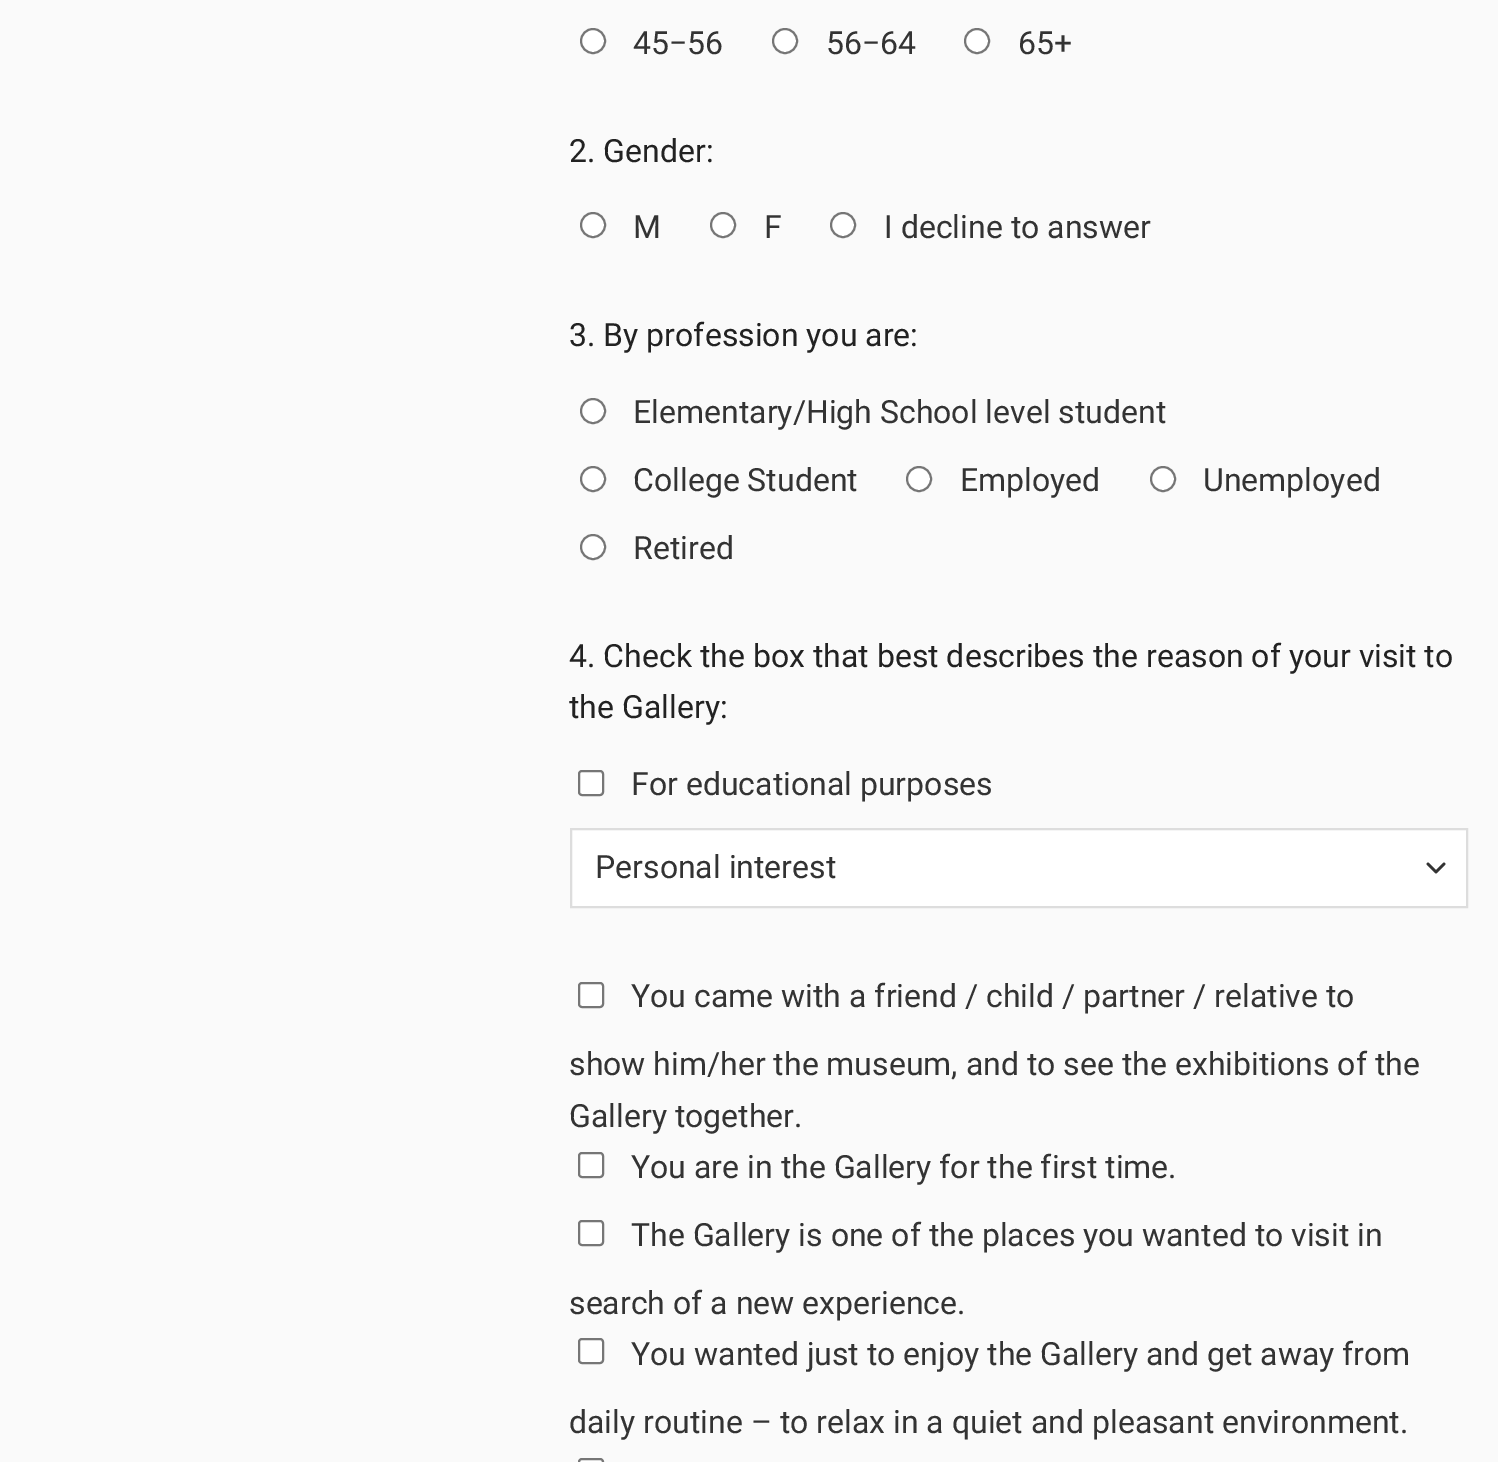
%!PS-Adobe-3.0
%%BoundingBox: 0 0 1498 1462
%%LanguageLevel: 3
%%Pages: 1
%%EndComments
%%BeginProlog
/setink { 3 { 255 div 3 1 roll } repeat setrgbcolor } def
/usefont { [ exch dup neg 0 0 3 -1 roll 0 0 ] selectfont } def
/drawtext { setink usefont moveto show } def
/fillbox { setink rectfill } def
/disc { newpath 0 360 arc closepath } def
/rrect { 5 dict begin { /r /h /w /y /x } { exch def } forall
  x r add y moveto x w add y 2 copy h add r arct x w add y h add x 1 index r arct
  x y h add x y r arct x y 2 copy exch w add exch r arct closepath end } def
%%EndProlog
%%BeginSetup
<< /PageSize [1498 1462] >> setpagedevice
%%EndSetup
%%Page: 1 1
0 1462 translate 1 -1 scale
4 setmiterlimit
0 0 1498 1462 250 250 250 fillbox
255 255 255 setink
593 41 12 disc gsave fill grestore
118 118 118 setink
2 setlinewidth
stroke
(45−56) 633 54 /Roboto-Regular 32 51 51 51 drawtext
255 255 255 setink
785 41 12 disc gsave fill grestore
118 118 118 setink
stroke
(56−64) 826 54 /Roboto-Regular 32 51 51 51 drawtext
255 255 255 setink
977 41 12 disc gsave fill grestore
118 118 118 setink
stroke
(65+) 1018 54 /Roboto-Regular 32 51 51 51 drawtext
(2. Gender:) 569 162 /Roboto-Regular 32 34 34 34 drawtext
255 255 255 setink
593 225 12 disc gsave fill grestore
118 118 118 setink
stroke
(M) 633 238 /Roboto-Regular 32 51 51 51 drawtext
255 255 255 setink
723 225 12 disc gsave fill grestore
118 118 118 setink
stroke
(F) 764 238 /Roboto-Regular 32 51 51 51 drawtext
255 255 255 setink
843 225 12 disc gsave fill grestore
118 118 118 setink
stroke
(I decline to answer) 884 238 /Roboto-Regular 32 51 51 51 drawtext
(3. By profession you are:) 569 346 /Roboto-Regular 32 34 34 34 drawtext
255 255 255 setink
593 411 12 disc gsave fill grestore
118 118 118 setink
stroke
(Elementary/High School level student) 633 423 /Roboto-Regular 32 51 51 51 drawtext
255 255 255 setink
593 479 12 disc gsave fill grestore
118 118 118 setink
stroke
(College Student) 633 491 /Roboto-Regular 32 51 51 51 drawtext
255 255 255 setink
919 479 12 disc gsave fill grestore
118 118 118 setink
stroke
(Employed) 960 491 /Roboto-Regular 32 51 51 51 drawtext
255 255 255 setink
1163 479 12 disc gsave fill grestore
118 118 118 setink
stroke
(Unemployed) 1203 491 /Roboto-Regular 32 51 51 51 drawtext
255 255 255 setink
593 547 12 disc gsave fill grestore
118 118 118 setink
stroke
(Retired) 633 559 /Roboto-Regular 32 51 51 51 drawtext
(4. Check the box that best describes the reason of your visit to) 569 667 /Roboto-Regular 32 34 34 34 drawtext
(the Gallery:) 569 718 /Roboto-Regular 32 34 34 34 drawtext
255 255 255 setink
579 771 24 24 3 rrect gsave fill grestore
118 118 118 setink
stroke
(For educational purposes) 631 795 /Roboto-Regular 32 51 51 51 drawtext
572 830 894 76 255 255 255 fillbox
51 51 51 setink
2.7 setlinewidth
1 setlinecap
1 setlinejoin
1428 864 moveto 1436 872 lineto 1444 864 lineto stroke
221 221 221 setink
2 setlinewidth
0 setlinecap
0 setlinejoin
571 829 896 78 rectstroke
(Personal interest) 595 878 /Roboto-Regular 32 51 51 51 drawtext
255 255 255 setink
579 983 24 24 3 rrect gsave fill grestore
118 118 118 setink
stroke
(You came with a friend / child / partner / relative to) 631 1007 /Roboto-Regular 32 51 51 51 drawtext
(show him/her the museum, and to see the exhibitions of the) 569 1075 /Roboto-Regular 32 51 51 51 drawtext
(Gallery together.) 569 1127 /Roboto-Regular 32 51 51 51 drawtext
255 255 255 setink
579 1153 24 24 3 rrect gsave fill grestore
118 118 118 setink
stroke
(You are in the Gallery for the first time.) 631 1178 /Roboto-Regular 32 51 51 51 drawtext
255 255 255 setink
579 1221 24 24 3 rrect gsave fill grestore
118 118 118 setink
stroke
(The Gallery is one of the places you wanted to visit in) 631 1246 /Roboto-Regular 32 51 51 51 drawtext
(search of a new experience.) 569 1314 /Roboto-Regular 32 51 51 51 drawtext
255 255 255 setink
579 1339 24 24 3 rrect gsave fill grestore
118 118 118 setink
stroke
(You wanted just to enjoy the Gallery and get away from) 631 1365 /Roboto-Regular 32 51 51 51 drawtext
(daily routine – to relax in a quiet and pleasant environment.) 569 1433 /Roboto-Regular 32 51 51 51 drawtext
255 255 255 setink
579 1459 24 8 3 rrect gsave fill grestore
118 118 118 setink
stroke
showpage
%%EOF
